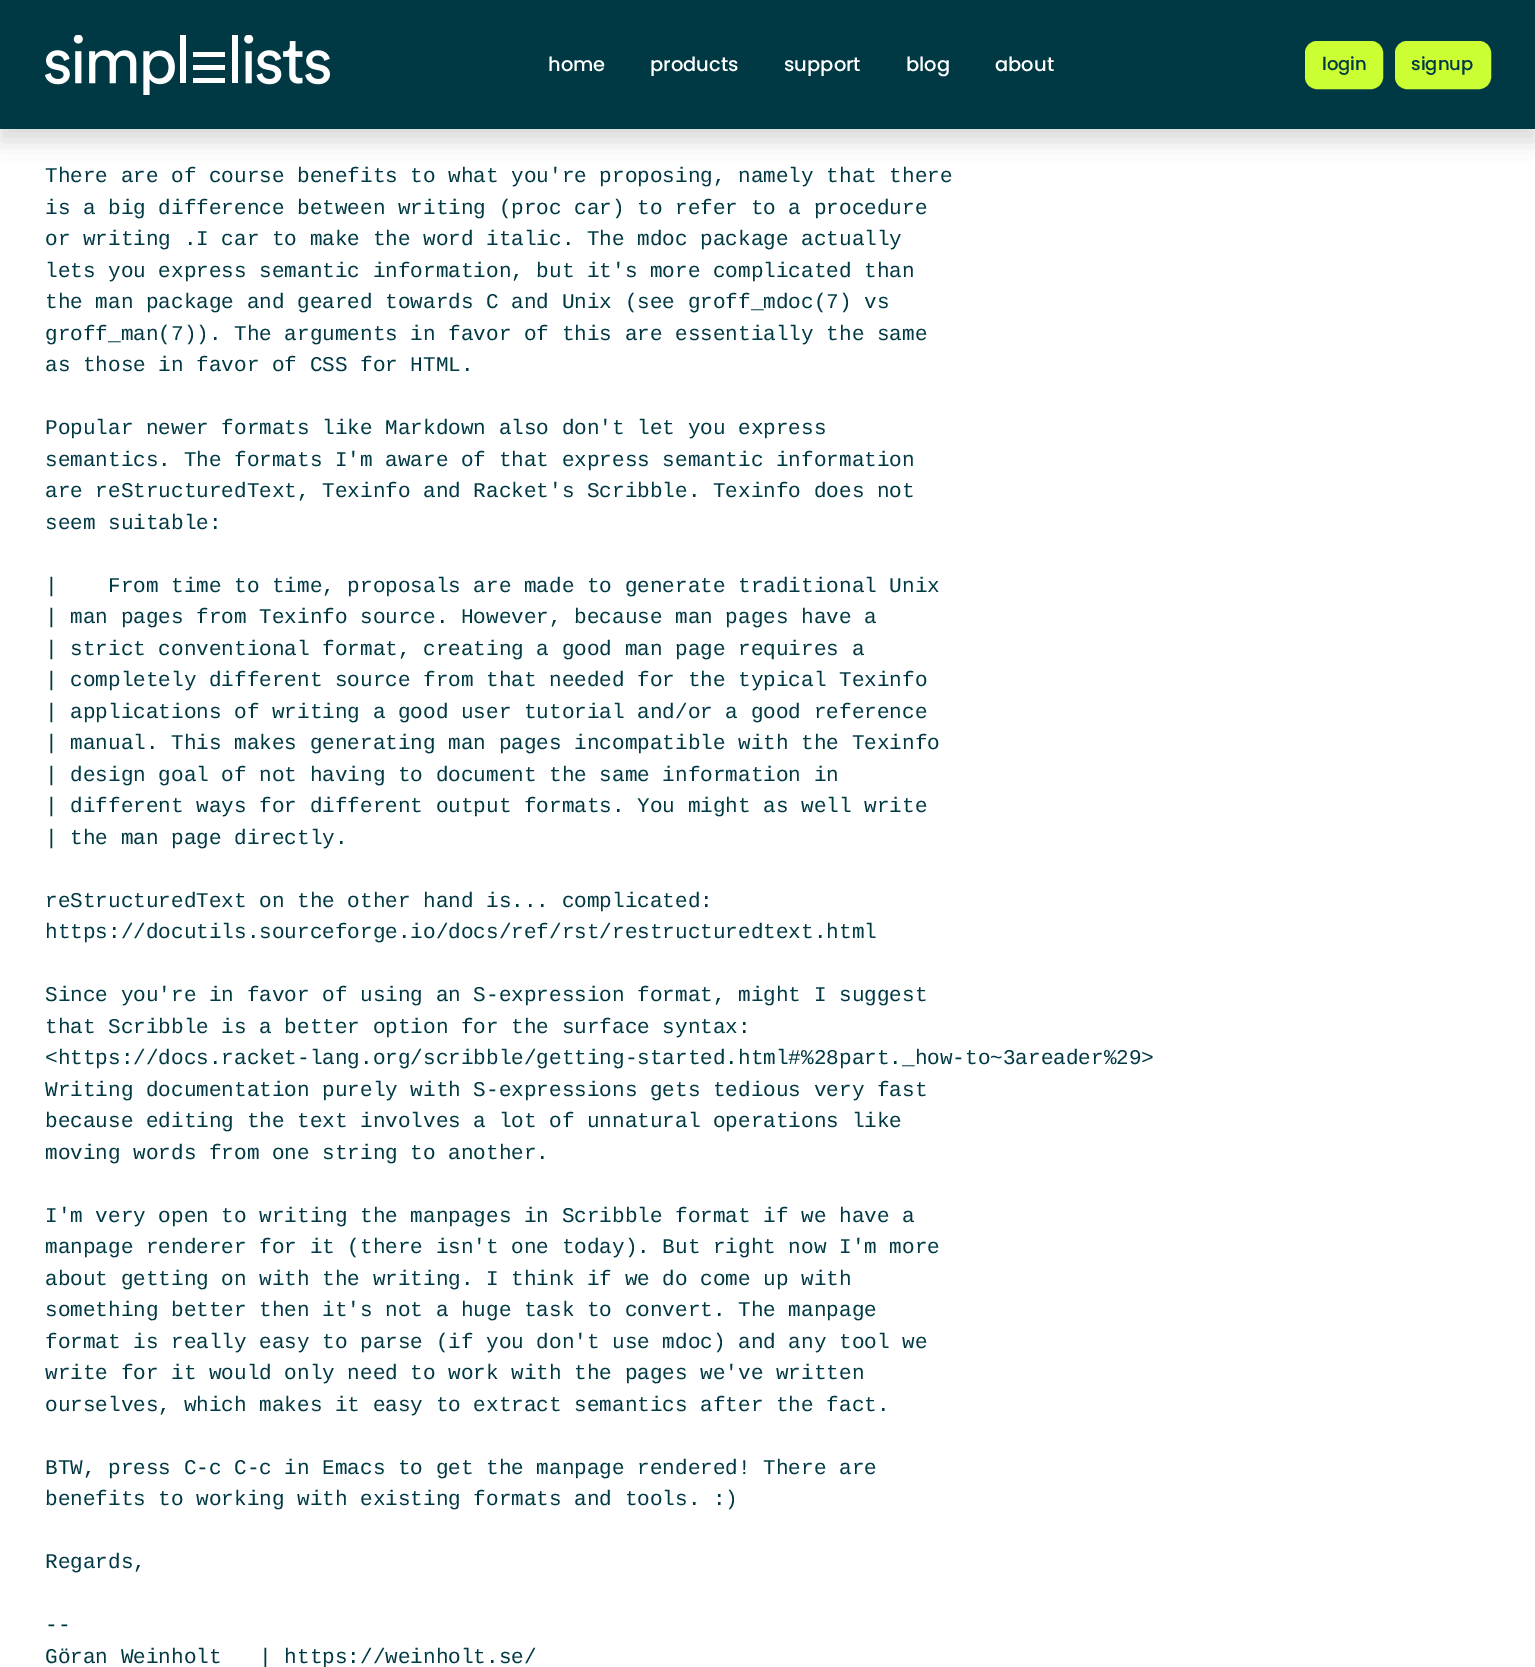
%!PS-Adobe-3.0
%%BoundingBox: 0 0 1535 1667
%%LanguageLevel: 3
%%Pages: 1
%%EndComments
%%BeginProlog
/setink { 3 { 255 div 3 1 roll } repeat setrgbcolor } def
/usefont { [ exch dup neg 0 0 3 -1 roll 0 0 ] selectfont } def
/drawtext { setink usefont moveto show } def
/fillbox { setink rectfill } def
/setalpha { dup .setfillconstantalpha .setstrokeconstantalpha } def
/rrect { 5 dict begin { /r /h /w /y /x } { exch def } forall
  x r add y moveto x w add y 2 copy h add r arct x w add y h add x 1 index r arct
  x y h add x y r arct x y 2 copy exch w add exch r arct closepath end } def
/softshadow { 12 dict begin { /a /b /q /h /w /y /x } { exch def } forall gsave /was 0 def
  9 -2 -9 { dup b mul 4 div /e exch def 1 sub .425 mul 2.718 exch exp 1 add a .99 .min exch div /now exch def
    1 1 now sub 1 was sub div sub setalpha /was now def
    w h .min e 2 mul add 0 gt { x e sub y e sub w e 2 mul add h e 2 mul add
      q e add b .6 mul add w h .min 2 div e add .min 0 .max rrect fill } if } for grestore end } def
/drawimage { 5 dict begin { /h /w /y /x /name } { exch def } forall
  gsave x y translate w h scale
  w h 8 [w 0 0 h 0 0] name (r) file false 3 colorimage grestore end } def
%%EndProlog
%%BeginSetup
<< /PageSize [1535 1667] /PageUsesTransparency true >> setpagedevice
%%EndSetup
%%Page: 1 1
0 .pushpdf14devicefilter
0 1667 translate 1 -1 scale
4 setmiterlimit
0 0 1535 1667 255 255 255 fillbox
0 0 0 setink
0 12 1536 129 0 11 0.15 softshadow
0 0 1535 129 0 57 68 fillbox
(assets/img1.rgb) 45 35 285 60 drawimage
(home) 548 71 /Poppins-Medium 19.5 255 255 255 drawtext
(products) 650 71 /Poppins-Medium 19.5 255 255 255 drawtext
(support) 784 71 /Poppins-Medium 19.5 255 255 255 drawtext
(blog) 906 71 /Poppins-Medium 19.5 255 255 255 drawtext
(about) 995 71 /Poppins-Medium 19.5 255 255 255 drawtext
204 255 51 setink
1306 42 76 46 11 rrect gsave fill grestore
2 setlinewidth
stroke
(login) 1322 70 /Poppins-Medium 18 0 57 68 drawtext
204 255 51 setink
1396 42 94 46 11 rrect gsave fill grestore
stroke
(signup) 1411 70 /Poppins-Medium 18 0 57 68 drawtext
(There are of course benefits to what you're proposing, namely that there) 45 182 /LiberationMono-Regular 21 0 57 68 drawtext
(is a big difference between writing \(proc car\) to refer to a procedure) 45 214 /LiberationMono-Regular 21 0 57 68 drawtext
(or writing .I car to make the word italic. The mdoc package actually) 45 245 /LiberationMono-Regular 21 0 57 68 drawtext
(lets you express semantic information, but it's more complicated than) 45 277 /LiberationMono-Regular 21 0 57 68 drawtext
(the man package and geared towards C and Unix \(see groff_mdoc\(7\) vs) 45 308 /LiberationMono-Regular 21 0 57 68 drawtext
(groff_man\(7\)\). The arguments in favor of this are essentially the same) 45 340 /LiberationMono-Regular 21 0 57 68 drawtext
(as those in favor of CSS for HTML.) 45 371 /LiberationMono-Regular 21 0 57 68 drawtext
(Popular newer formats like Markdown also don't let you express) 45 434 /LiberationMono-Regular 21 0 57 68 drawtext
(semantics. The formats I'm aware of that express semantic information) 45 466 /LiberationMono-Regular 21 0 57 68 drawtext
(are reStructuredText, Texinfo and Racket's Scribble. Texinfo does not) 45 497 /LiberationMono-Regular 21 0 57 68 drawtext
(seem suitable:) 45 529 /LiberationMono-Regular 21 0 57 68 drawtext
(|    From time to time, proposals are made to generate traditional Unix) 45 592 /LiberationMono-Regular 21 0 57 68 drawtext
(| man pages from Texinfo source. However, because man pages have a) 45 623 /LiberationMono-Regular 21 0 57 68 drawtext
(| strict conventional format, creating a good man page requires a) 45 655 /LiberationMono-Regular 21 0 57 68 drawtext
(| completely different source from that needed for the typical Texinfo) 45 686 /LiberationMono-Regular 21 0 57 68 drawtext
(| applications of writing a good user tutorial and/or a good reference) 45 718 /LiberationMono-Regular 21 0 57 68 drawtext
(| manual. This makes generating man pages incompatible with the Texinfo) 45 749 /LiberationMono-Regular 21 0 57 68 drawtext
(| design goal of not having to document the same information in) 45 781 /LiberationMono-Regular 21 0 57 68 drawtext
(| different ways for different output formats. You might as well write) 45 812 /LiberationMono-Regular 21 0 57 68 drawtext
(| the man page directly.) 45 844 /LiberationMono-Regular 21 0 57 68 drawtext
(reStructuredText on the other hand is... complicated:) 45 907 /LiberationMono-Regular 21 0 57 68 drawtext
(https://docutils.sourceforge.io/docs/ref/rst/restructuredtext.html) 45 938 /LiberationMono-Regular 21 0 57 68 drawtext
(Since you're in favor of using an S-expression format, might I suggest) 45 1001 /LiberationMono-Regular 21 0 57 68 drawtext
(that Scribble is a better option for the surface syntax:) 45 1033 /LiberationMono-Regular 21 0 57 68 drawtext
(<https://docs.racket-lang.org/scribble/getting-started.html#%28part._how-to~3areader%29>) 45 1064 /LiberationMono-Regular 21 0 57 68 drawtext
(Writing documentation purely with S-expressions gets tedious very fast) 45 1096 /LiberationMono-Regular 21 0 57 68 drawtext
(because editing the text involves a lot of unnatural operations like) 45 1127 /LiberationMono-Regular 21 0 57 68 drawtext
(moving words from one string to another.) 45 1159 /LiberationMono-Regular 21 0 57 68 drawtext
(I'm very open to writing the manpages in Scribble format if we have a) 45 1222 /LiberationMono-Regular 21 0 57 68 drawtext
(manpage renderer for it \(there isn't one today\). But right now I'm more) 45 1253 /LiberationMono-Regular 21 0 57 68 drawtext
(about getting on with the writing. I think if we do come up with) 45 1285 /LiberationMono-Regular 21 0 57 68 drawtext
(something better then it's not a huge task to convert. The manpage) 45 1316 /LiberationMono-Regular 21 0 57 68 drawtext
(format is really easy to parse \(if you don't use mdoc\) and any tool we) 45 1348 /LiberationMono-Regular 21 0 57 68 drawtext
(write for it would only need to work with the pages we've written) 45 1379 /LiberationMono-Regular 21 0 57 68 drawtext
(ourselves, which makes it easy to extract semantics after the fact.) 45 1411 /LiberationMono-Regular 21 0 57 68 drawtext
(BTW, press C-c C-c in Emacs to get the manpage rendered! There are) 45 1474 /LiberationMono-Regular 21 0 57 68 drawtext
(benefits to working with existing formats and tools. :\)) 45 1505 /LiberationMono-Regular 21 0 57 68 drawtext
(Regards,) 45 1568 /LiberationMono-Regular 21 0 57 68 drawtext
(--) 45 1631 /LiberationMono-Regular 21 0 57 68 drawtext
(Göran Weinholt   | https://weinholt.se/) 45 1663 /LiberationMono-Regular 21 0 57 68 drawtext
.poppdf14devicefilter showpage
%%EOF
